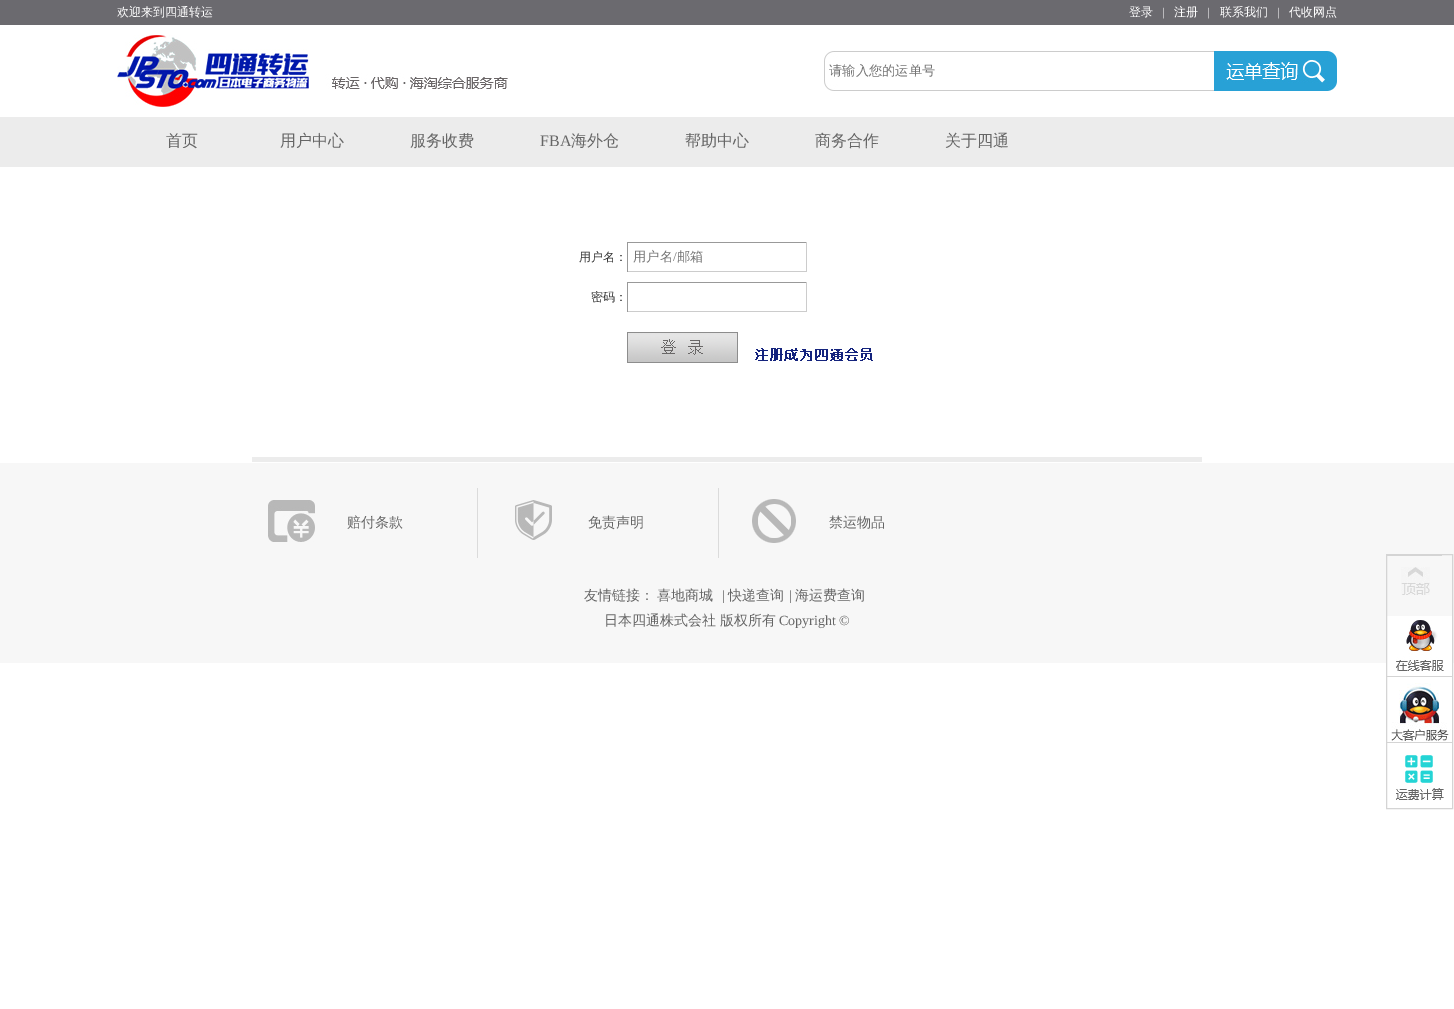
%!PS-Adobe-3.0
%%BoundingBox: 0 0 1454 1009
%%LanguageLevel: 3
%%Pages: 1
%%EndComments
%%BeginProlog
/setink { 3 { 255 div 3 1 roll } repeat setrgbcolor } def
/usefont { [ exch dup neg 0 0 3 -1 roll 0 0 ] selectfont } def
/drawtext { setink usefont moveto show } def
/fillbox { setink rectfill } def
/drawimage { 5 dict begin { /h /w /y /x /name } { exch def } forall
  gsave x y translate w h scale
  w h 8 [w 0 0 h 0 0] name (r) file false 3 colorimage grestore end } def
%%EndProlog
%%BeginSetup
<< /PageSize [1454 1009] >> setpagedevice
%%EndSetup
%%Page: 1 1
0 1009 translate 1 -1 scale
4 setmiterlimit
0 0 1454 1009 255 255 255 fillbox
0 0 1454 25 107 106 111 fillbox
(欢迎来到四通转运) 117 16 /WenQuanYiZenHei-Medium 12 255 255 255 drawtext
(登录) 1129 16 /WenQuanYiZenHei-Medium 12 255 255 255 drawtext
(|) 1162 16 /LiberationSerif-Regular 12 255 255 255 drawtext
(注册) 1174 16 /WenQuanYiZenHei-Medium 12 255 255 255 drawtext
(|) 1207 16 /LiberationSerif-Regular 12 255 255 255 drawtext
(联系我们) 1220 16 /WenQuanYiZenHei-Medium 12 255 255 255 drawtext
(|) 1277 16 /LiberationSerif-Regular 12 255 255 255 drawtext
(代收网点) 1289 16 /WenQuanYiZenHei-Medium 12 255 255 255 drawtext
(assets/img1.rgb) 117 35 391 72 drawimage
(assets/img2.rgb) 824 51 390 40 drawimage
(请输入您的运单号) 829 75 /WenQuanYiZenHei-Medium 13.25 117 117 117 drawtext
(assets/img3.rgb) 1214 51 123 40 drawimage
0 117 1454 50 236 236 236 fillbox
(首页) 166 146 /WenQuanYiZenHei-Medium 16 102 102 102 drawtext
(用户中心) 280 146 /WenQuanYiZenHei-Medium 16 102 102 102 drawtext
(服务收费) 410 146 /WenQuanYiZenHei-Medium 16 102 102 102 drawtext
(FBA) 540 146 /LiberationSerif-Regular 16 102 102 102 drawtext
(海外仓) 571 146 /WenQuanYiZenHei-Medium 16 102 102 102 drawtext
(帮助中心) 685 146 /WenQuanYiZenHei-Medium 16 102 102 102 drawtext
(商务合作) 815 146 /WenQuanYiZenHei-Medium 16 102 102 102 drawtext
(关于四通) 945 146 /WenQuanYiZenHei-Medium 16 102 102 102 drawtext
(用户名：) 579 261 /WenQuanYiZenHei-Medium 12 51 51 51 drawtext
627 242 180 1 153 153 153 fillbox
806 242 1 30 204 204 204 fillbox
627 271 180 1 204 204 204 fillbox
627 242 1 30 153 153 153 fillbox
(用户名 邮箱) 633 261 /WenQuanYiZenHei-Medium 13.25 117 117 117 drawtext
(/) 673 261 /LiberationSerif-Regular 13.25 117 117 117 drawtext
(密码：) 591 301 /WenQuanYiZenHei-Medium 12 51 51 51 drawtext
627 282 180 1 153 153 153 fillbox
806 282 1 30 204 204 204 fillbox
627 311 180 1 204 204 204 fillbox
627 282 1 30 153 153 153 fillbox
(assets/img4.rgb) 627 332 111 31 drawimage
(assets/img5.rgb) 755 348 118 13 drawimage
252 457 950 5 236 236 236 fillbox
0 463 1454 200 247 247 247 fillbox
1387 616 65 47 255 255 255 fillbox
212 212 212 setink
1386.5 554.5 66 254 rectstroke
1387 555 55 1 212 212 212 fillbox
(assets/img6.rgb) 1401 567 29 28 drawimage
(assets/img7.rgb) 1396 620 48 51 drawimage
1387 676 65 1 212 212 212 fillbox
(assets/img8.rgb) 1391 683 58 58 drawimage
1387 742 65 1 212 212 212 fillbox
(assets/img9.rgb) 1396 755 48 45 drawimage
477 488 1 70 219 219 219 fillbox
(assets/img10.rgb) 268 500 47 42 drawimage
(赔付条款) 347 527 /WenQuanYiZenHei-Medium 14 102 102 102 drawtext
718 488 1 70 219 219 219 fillbox
(assets/img11.rgb) 515 500 37 40 drawimage
(免责声明) 588 527 /WenQuanYiZenHei-Medium 14 102 102 102 drawtext
(assets/img12.rgb) 752 499 44 44 drawimage
(禁运物品) 829 527 /WenQuanYiZenHei-Medium 14 102 102 102 drawtext
(友情链接：) 584 600 /WenQuanYiZenHei-Medium 14 102 102 102 drawtext
(喜地商城) 657 600 /WenQuanYiZenHei-Medium 14 102 102 102 drawtext
(|) 722 600 /LiberationSerif-Regular 14 102 102 102 drawtext
(快递查询) 728 600 /WenQuanYiZenHei-Medium 14 102 102 102 drawtext
(|) 789 600 /LiberationSerif-Regular 14 102 102 102 drawtext
(海运费查询) 795 600 /WenQuanYiZenHei-Medium 14 102 102 102 drawtext
(日本四通株式会社) 604 625 /WenQuanYiZenHei-Medium 14 102 102 102 drawtext
(版权所有) 720 625 /WenQuanYiZenHei-Medium 14 102 102 102 drawtext
(Copyright ©) 779 625 /LiberationSerif-Regular 14 102 102 102 drawtext
showpage
%%EOF
